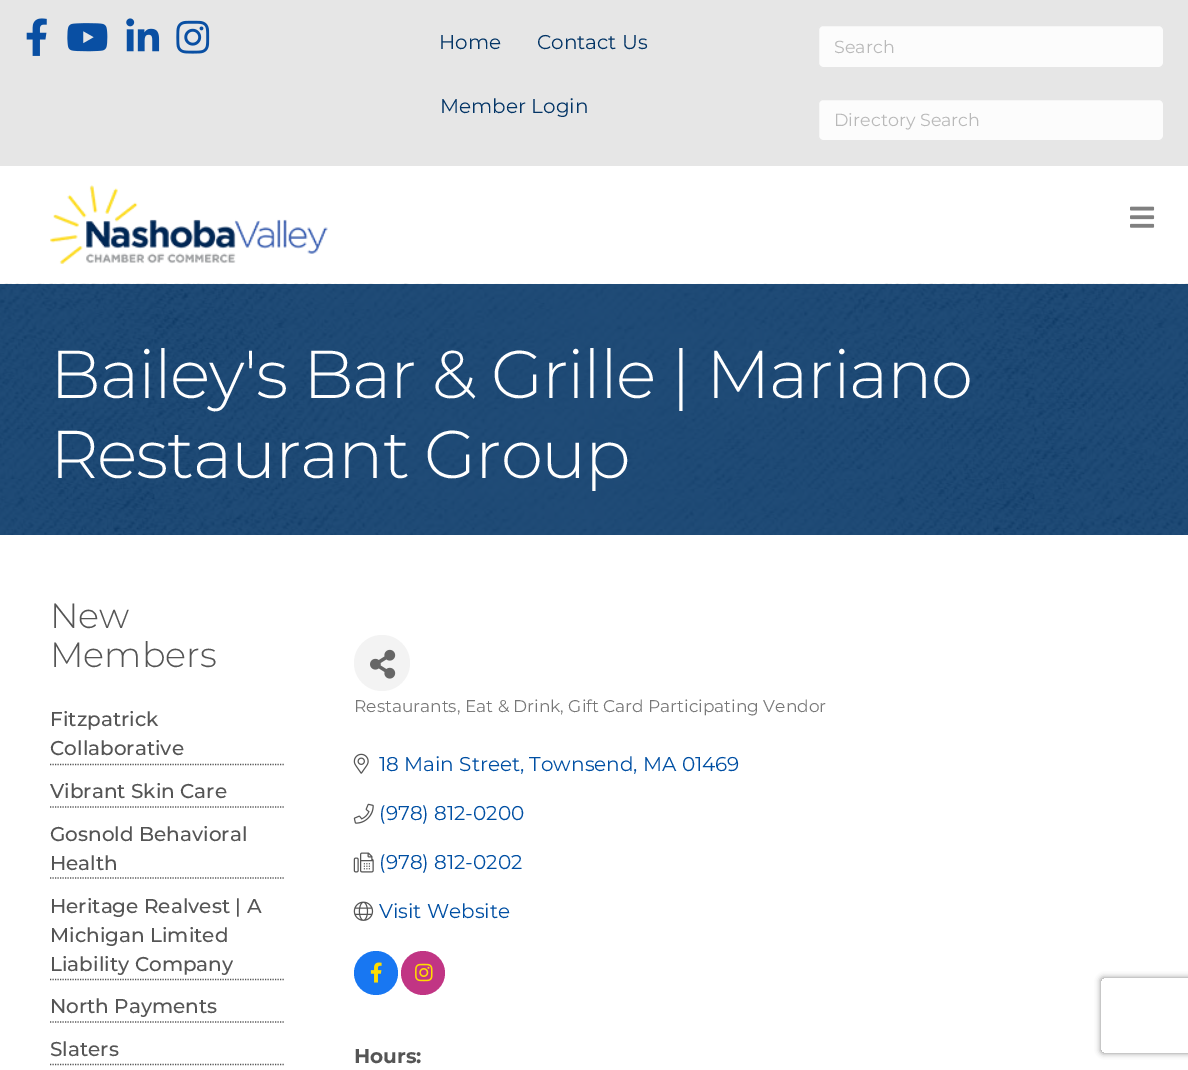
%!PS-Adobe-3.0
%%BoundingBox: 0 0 1188 1070
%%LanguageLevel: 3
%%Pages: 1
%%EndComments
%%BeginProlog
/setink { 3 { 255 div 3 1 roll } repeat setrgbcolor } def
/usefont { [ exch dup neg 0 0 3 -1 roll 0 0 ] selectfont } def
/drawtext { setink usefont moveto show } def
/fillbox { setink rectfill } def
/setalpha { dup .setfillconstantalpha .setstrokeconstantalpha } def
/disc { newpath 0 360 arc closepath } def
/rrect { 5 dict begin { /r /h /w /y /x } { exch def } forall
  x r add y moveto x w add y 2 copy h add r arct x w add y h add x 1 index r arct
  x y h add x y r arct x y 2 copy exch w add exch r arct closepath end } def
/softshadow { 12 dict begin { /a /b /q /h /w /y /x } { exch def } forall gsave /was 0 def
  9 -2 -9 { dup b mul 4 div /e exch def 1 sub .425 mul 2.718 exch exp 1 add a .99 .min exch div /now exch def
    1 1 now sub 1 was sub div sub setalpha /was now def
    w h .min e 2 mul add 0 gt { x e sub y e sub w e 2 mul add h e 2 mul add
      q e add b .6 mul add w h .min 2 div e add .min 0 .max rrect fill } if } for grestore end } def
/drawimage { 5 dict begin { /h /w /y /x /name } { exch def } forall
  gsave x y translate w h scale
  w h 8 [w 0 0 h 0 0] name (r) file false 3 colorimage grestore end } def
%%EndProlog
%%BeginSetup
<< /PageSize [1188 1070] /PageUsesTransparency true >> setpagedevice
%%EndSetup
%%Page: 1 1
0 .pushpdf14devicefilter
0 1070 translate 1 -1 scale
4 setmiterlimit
0 0 1188 1070 255 255 255 fillbox
0 0 1188 166 230 230 230 fillbox
(assets/img1.rgb) 26 18 21 38 drawimage
(assets/img2.rgb) 67 23 41 29 drawimage
(assets/img3.rgb) 126 18 34 34 drawimage
(assets/img4.rgb) 176 20 34 34 drawimage
(Home) 439 49 /Montserrat-Regular 20 4 53 102 drawtext
(Contact Us) 537 49 /Montserrat-Regular 20 4 53 102 drawtext
(Member Login) 440 113 /Montserrat-Regular 20 4 53 102 drawtext
252 252 252 setink
818.5 25.5 345 42 4.5 rrect gsave fill grestore
230 230 230 setink
stroke
(Search) 834 53 /Montserrat-Regular 17.5 185 185 185 drawtext
252 252 252 setink
818.5 99.5 345 41 4.5 rrect gsave fill grestore
230 230 230 setink
stroke
(Directory Search) 834 126 /Montserrat-Regular 17.5 185 185 185 drawtext
(assets/img5.rgb) 50 185 278 79 drawimage
(assets/img6.rgb) 1130 206 25 22 drawimage
(assets/img7.rgb) 0 283 1188 252 drawimage
/Montserrat-Light 67.5 usefont
255 255 255 setink
50 398 moveto -1.25 0 (Bailey's Bar & Grille | Mariano) ashow
50 478 moveto -1.25 0 (Restaurant Group) ashow
(New) 50 628 /Montserrat-Light 35 85 85 85 drawtext
(Members) 50 667 /Montserrat-Light 35 85 85 85 drawtext
1.2 setlinewidth
[1.25 1.25] 0 setdash
50 764.5 moveto 285 764.5 lineto stroke
(Fitzpatrick) 50 726 /Montserrat-Medium 20 85 85 85 drawtext
(Collaborative) 50 755 /Montserrat-Medium 20 85 85 85 drawtext
50 807 moveto 285 807 lineto stroke
(Vibrant Skin Care) 50 798 /Montserrat-Medium 20 85 85 85 drawtext
50 878 moveto 285 878 lineto stroke
(Gosnold Behavioral) 50 841 /Montserrat-Medium 20 85 85 85 drawtext
(Health) 50 870 /Montserrat-Medium 20 85 85 85 drawtext
50 979.5 moveto 285 979.5 lineto stroke
(Heritage Realvest | A) 50 913 /Montserrat-Medium 20 85 85 85 drawtext
(Michigan Limited) 50 942 /Montserrat-Medium 20 85 85 85 drawtext
(Liability Company) 50 971 /Montserrat-Medium 20 85 85 85 drawtext
50 1022 moveto 285 1022 lineto stroke
(North Payments) 50 1013 /Montserrat-Medium 20 85 85 85 drawtext
50 1064.5 moveto 285 1064.5 lineto stroke
(Slaters) 50 1056 /Montserrat-Medium 20 85 85 85 drawtext
243 243 243 setink
382 663 28 disc fill
(assets/img8.rgb) 370 649 26 30 drawimage
(Restaurants, Eat & Drink, Gift Card Participating Vendor) 354 712 /Montserrat-Regular 17 119 119 119 drawtext
(assets/img9.rgb) 353 753 16 21 drawimage
(18 Main Street, Townsend, MA 01469) 379 771 /Montserrat-Regular 20 0 79 163 drawtext
(assets/img10.rgb) 353 803 21 21 drawimage
(\(978\) 812-0200) 379 820 /Montserrat-Regular 20 0 79 163 drawtext
(assets/img11.rgb) 353 852 21 21 drawimage
(\(978\) 812-0202) 379 869 /Montserrat-Regular 20 0 79 163 drawtext
(assets/img12.rgb) 353 901 21 20 drawimage
(Visit Website) 379 918 /Montserrat-Regular 20 0 79 163 drawtext
24 119 242 setink
376 973 22 disc fill
(assets/img13.rgb) 370 962 12 21 drawimage
193 53 132 setink
423 973 22 disc fill
(assets/img14.rgb) 415 963 18 19 drawimage
(Hours:) 354 1063 /Montserrat-Bold 20 85 85 85 drawtext
gsave
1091 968 moveto 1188 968 lineto 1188 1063 lineto 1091 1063 lineto closepath 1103.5 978 moveto 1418.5 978 lineto 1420 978 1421 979 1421 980.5 curveto 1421 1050.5 lineto 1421 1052 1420 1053 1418.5 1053 curveto 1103.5 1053 lineto 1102 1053 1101 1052 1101 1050.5 curveto 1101 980.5 lineto 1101 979 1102 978 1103.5 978 curveto closepath eoclip newpath
128 128 128 setink
1101 978 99 75 2.5 3 1 softshadow
grestore
.poppdf14devicefilter showpage
%%EOF
